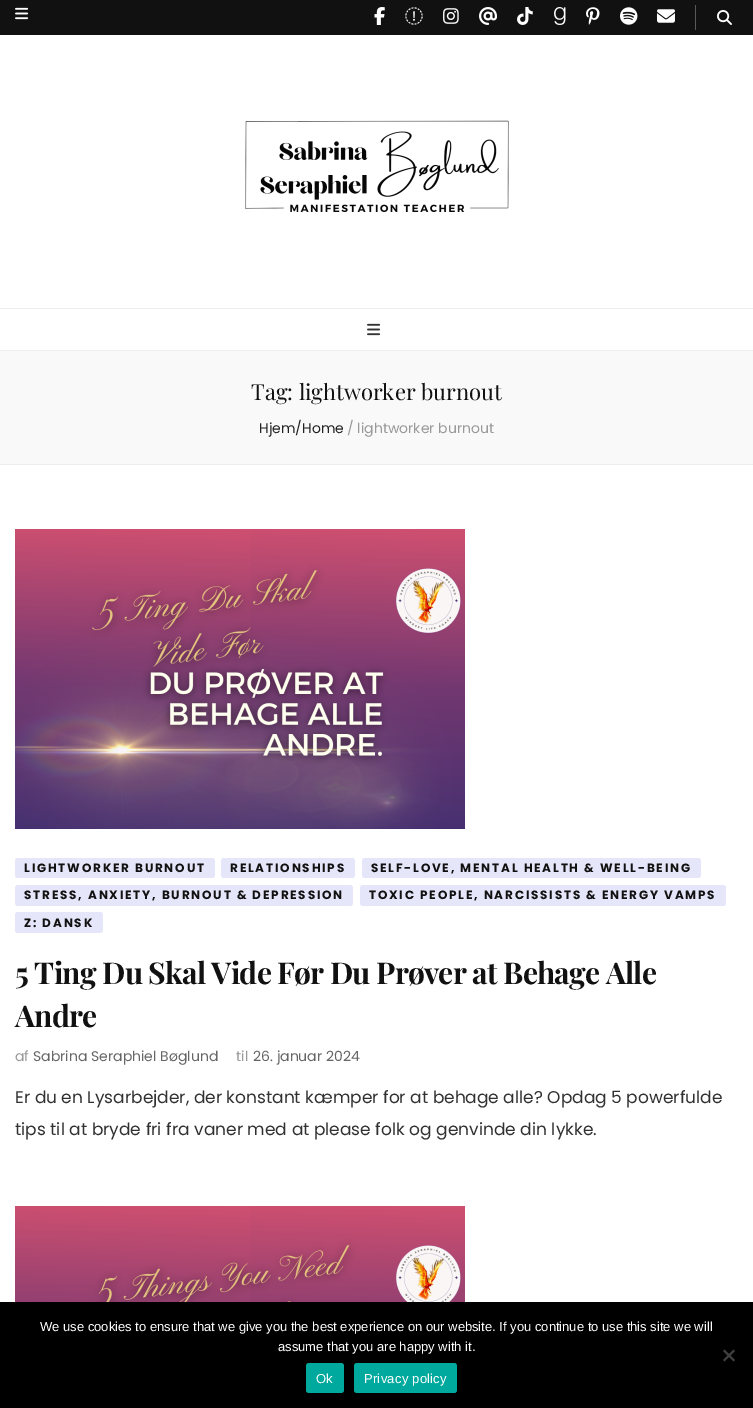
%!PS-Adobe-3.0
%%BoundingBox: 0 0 753 1408
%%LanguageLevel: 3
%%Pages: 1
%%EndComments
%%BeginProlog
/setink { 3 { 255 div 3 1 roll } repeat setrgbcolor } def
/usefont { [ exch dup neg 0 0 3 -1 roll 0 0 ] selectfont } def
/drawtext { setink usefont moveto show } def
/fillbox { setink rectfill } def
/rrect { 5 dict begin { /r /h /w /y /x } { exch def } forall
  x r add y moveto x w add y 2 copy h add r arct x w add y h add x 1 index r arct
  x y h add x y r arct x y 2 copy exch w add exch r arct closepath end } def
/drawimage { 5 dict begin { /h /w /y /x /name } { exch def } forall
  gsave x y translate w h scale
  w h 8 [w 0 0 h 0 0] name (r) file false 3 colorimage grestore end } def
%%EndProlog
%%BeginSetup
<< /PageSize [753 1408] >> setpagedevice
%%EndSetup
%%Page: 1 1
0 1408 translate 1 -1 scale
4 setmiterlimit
0 0 753 1408 255 255 255 fillbox
0 0 753 35 17 17 17 fillbox
(assets/img1.rgb) 15 7 14 13 drawimage
695 5 1 25 89 89 89 fillbox
(assets/img2.rgb) 374 7 11 18 drawimage
(assets/img3.rgb) 405 7 18 18 drawimage
(assets/img4.rgb) 443 8 16 16 drawimage
(assets/img5.rgb) 479 7 18 18 drawimage
(assets/img6.rgb) 517 7 16 18 drawimage
(assets/img7.rgb) 554 7 12 18 drawimage
(assets/img8.rgb) 586 7 14 18 drawimage
(assets/img9.rgb) 620 7 18 18 drawimage
(assets/img10.rgb) 657 9 18 14 drawimage
(assets/img11.rgb) 717 10 15 15 drawimage
(assets/img12.rgb) 245 120 264 92 drawimage
0 308 753 1 238 238 238 fillbox
0 350 753 1 238 238 238 fillbox
(assets/img13.rgb) 367 323 14 13 drawimage
0 351 753 113 249 249 249 fillbox
0 464 753 1 238 238 238 fillbox
(Tag: lightworker burnout) 251 400 /PlayfairDisplay-Regular 22 17 17 17 drawtext
(Hjem/Home) 259 433 /Poppins-Regular 14 34 34 34 drawtext
(/ lightworker burnout) 347 433 /Poppins-Regular 14 153 153 153 drawtext
(assets/img14.rgb) 15 529 450 300 drawimage
230 230 250 setink
15 858 200 20 3 rrect fill
/Poppins-Bold 12 usefont
17 17 17 setink
24 872 moveto 1.8 0 (LIGHTWORKER BURNOUT) ashow
230 230 250 setink
221 858 134 20 3 rrect fill
17 17 17 setink
230 872 moveto 1.8 0 (RELATIONSHIPS) ashow
230 230 250 setink
362 858 339 20 3 rrect fill
17 17 17 setink
371 872 moveto 1.8 0 (SELF-LOVE, MENTAL HEALTH & WELL-BEING) ashow
230 230 250 setink
15 885 338 21 3 rrect fill
17 17 17 setink
24 899 moveto 1.8 0 (STRESS, ANXIETY, BURNOUT & DEPRESSION) ashow
230 230 250 setink
360 885 366 21 3 rrect fill
17 17 17 setink
369 899 moveto 1.8 0 (TOXIC PEOPLE, NARCISSISTS & ENERGY VAMPS) ashow
230 230 250 setink
15 912 88 21 3 rrect fill
17 17 17 setink
24 927 moveto 1.8 0 (Z: DANSK) ashow
/PlayfairDisplay-Bold 30 usefont
15 984 moveto -0.75 0 (5 Ting Du Skal Vide Før Du Prøver at Behage Alle) ashow
15 1027 moveto -0.75 0 (Andre) ashow
(af) 15 1061 /Poppins-Regular 14 153 153 153 drawtext
(Sabrina Seraphiel Bøglund) 33 1061 /Poppins-Regular 14 102 102 102 drawtext
(til) 236 1061 /Poppins-Regular 14 153 153 153 drawtext
(26. januar 2024) 253 1061 /Poppins-Regular 14 102 102 102 drawtext
(Er du en Lysarbejder, der konstant kæmper for at behage alle? Opdag 5 powerfulde) 15 1103 /Poppins-Regular 17 49 49 49 drawtext
(tips til at bryde fri fra vaner med at please folk og genvinde din lykke.) 15 1135 /Poppins-Regular 17 49 49 49 drawtext
(assets/img15.rgb) 15 1206 450 96 drawimage
0 1302 753 106 0 0 0 fillbox
(We use cookies to ensure that we give you the best experience on our website. If you continue to use this site we will) 40 1331 /LiberationSans-Regular 13 255 255 255 drawtext
(assume that you are happy with it.) 278 1351 /LiberationSans-Regular 13 255 255 255 drawtext
64 64 64 setink
733.5 1349.5 moveto 735 1351 lineto 724.5 1361.5 lineto 723 1360 lineto closepath fill
723 1351 moveto 724.5 1349.5 lineto 735 1360 lineto 733.5 1361.5 lineto closepath fill
0 169 157 setink
306 1363 38 30 3 rrect fill
255 255 255 setink
316 1383 moveto 0.25 0 (Ok) ashow
0 169 157 setink
354 1363 103 30 3 rrect fill
255 255 255 setink
364 1383 moveto 0.25 0 (Privacy policy) ashow
showpage
%%EOF
